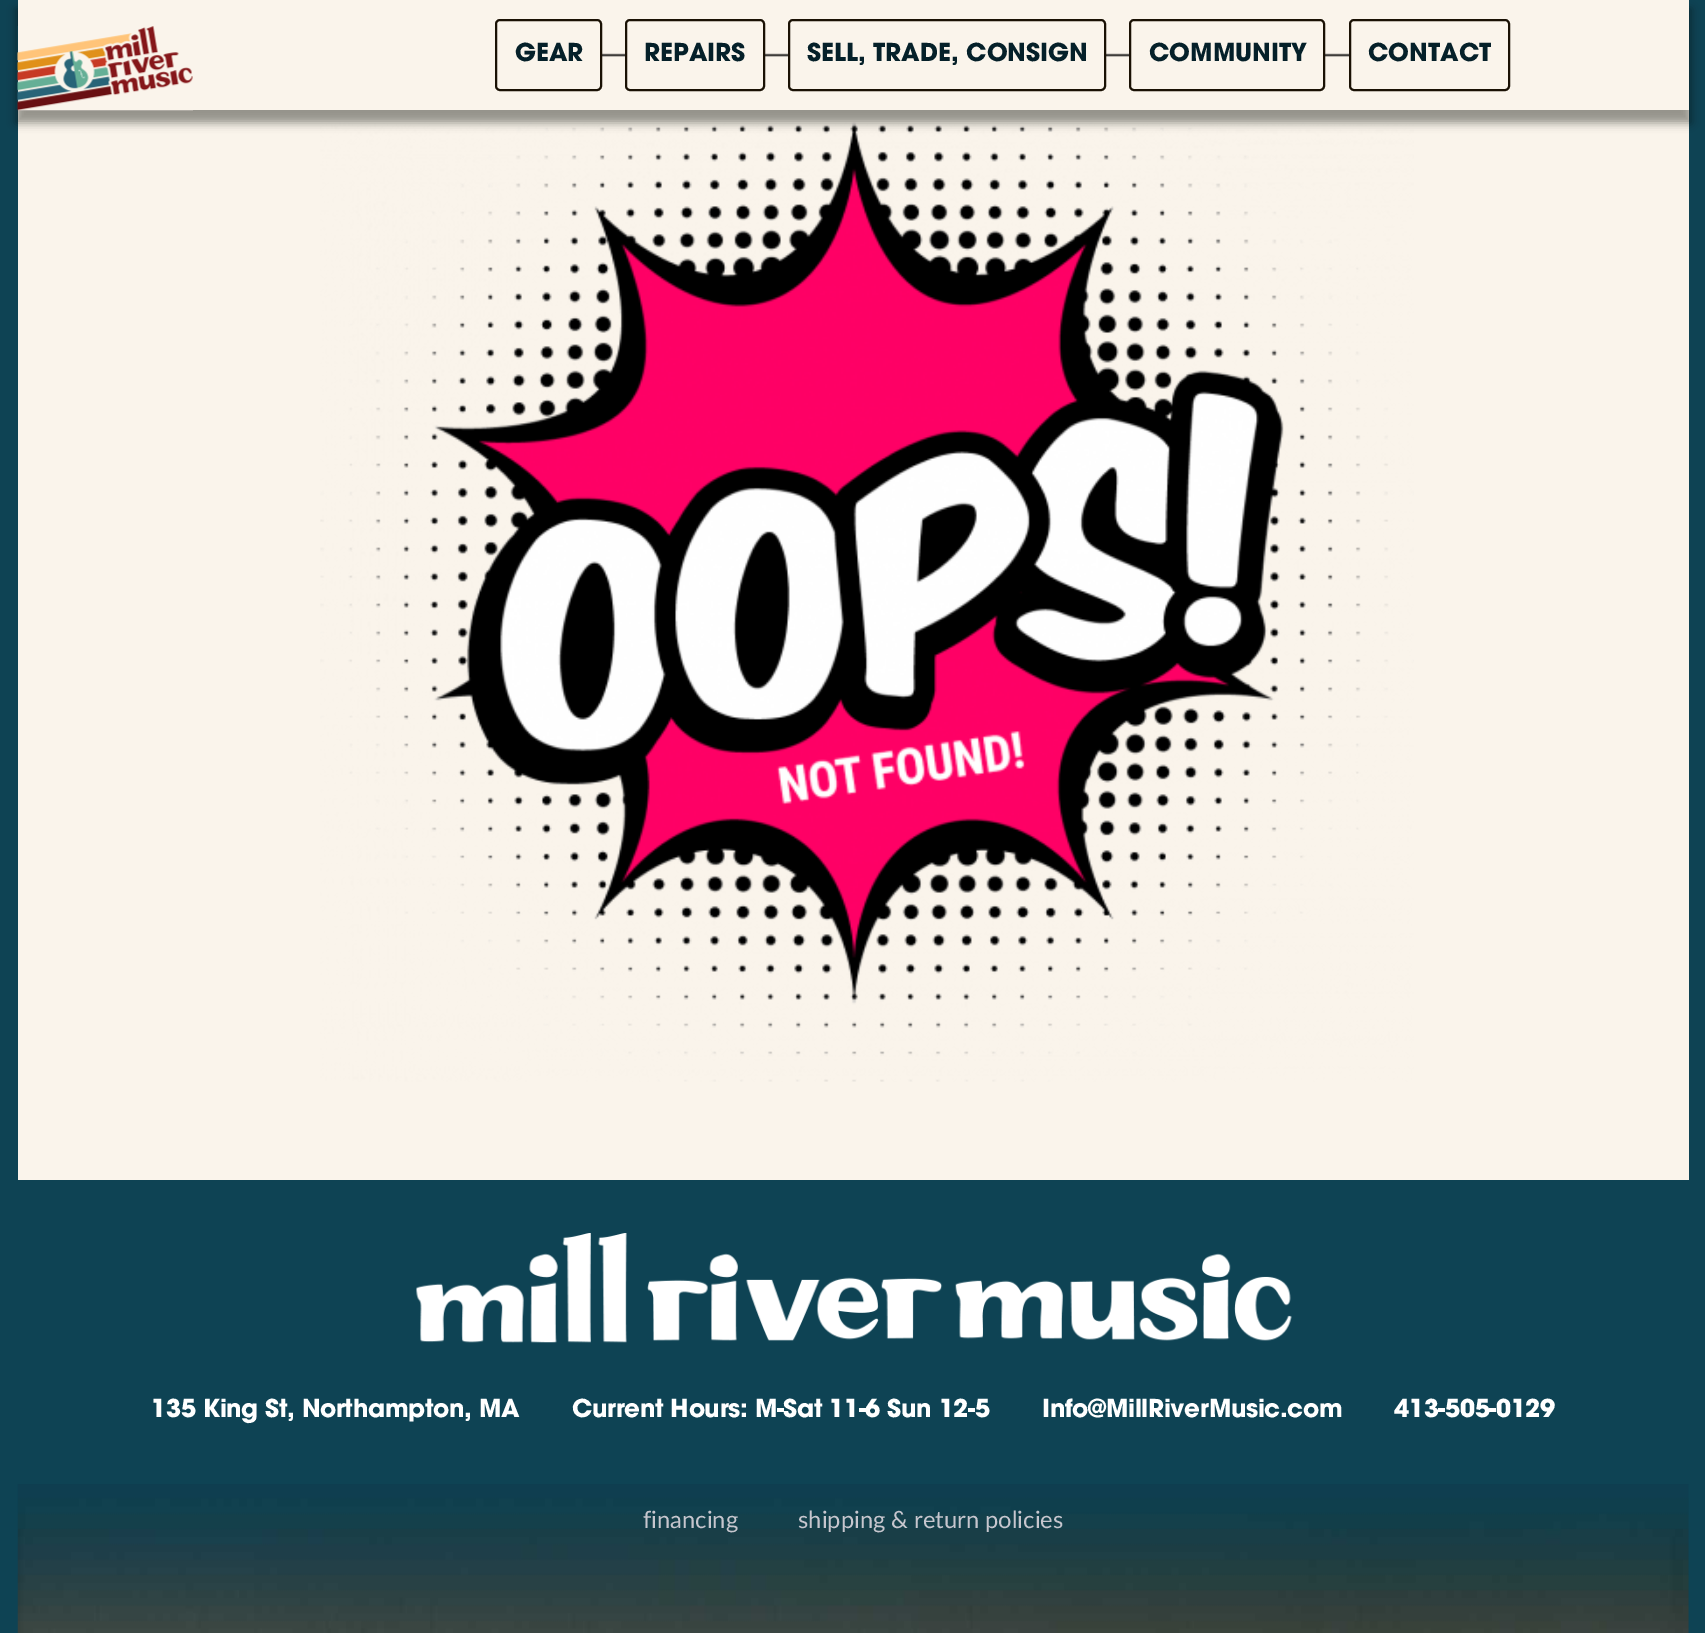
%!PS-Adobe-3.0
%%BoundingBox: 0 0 1705 1633
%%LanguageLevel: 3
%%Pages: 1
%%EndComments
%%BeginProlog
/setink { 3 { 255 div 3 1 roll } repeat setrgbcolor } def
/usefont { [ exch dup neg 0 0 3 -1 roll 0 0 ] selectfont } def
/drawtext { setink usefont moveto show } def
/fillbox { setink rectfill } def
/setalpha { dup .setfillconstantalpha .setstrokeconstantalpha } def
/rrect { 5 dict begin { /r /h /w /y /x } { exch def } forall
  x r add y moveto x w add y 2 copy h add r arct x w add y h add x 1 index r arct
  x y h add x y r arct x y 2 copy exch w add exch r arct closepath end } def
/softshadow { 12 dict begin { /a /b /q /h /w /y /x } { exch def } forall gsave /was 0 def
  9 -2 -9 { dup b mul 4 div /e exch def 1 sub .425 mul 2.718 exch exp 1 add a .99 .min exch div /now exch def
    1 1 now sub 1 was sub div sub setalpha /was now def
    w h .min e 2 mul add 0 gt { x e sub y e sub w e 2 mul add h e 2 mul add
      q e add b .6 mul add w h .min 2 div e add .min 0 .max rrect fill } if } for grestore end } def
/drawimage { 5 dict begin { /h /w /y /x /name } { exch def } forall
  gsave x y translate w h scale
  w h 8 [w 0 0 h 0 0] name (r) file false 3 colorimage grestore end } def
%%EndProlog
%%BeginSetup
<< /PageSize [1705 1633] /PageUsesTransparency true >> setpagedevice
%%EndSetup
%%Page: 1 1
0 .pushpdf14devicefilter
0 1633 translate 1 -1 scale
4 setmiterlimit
0 0 1705 1633 14 67 84 fillbox
18 110 1671 1070 250 244 235 fillbox
(assets/img3.rgb) 320 122 1094 960 drawimage
0 0 0 setink
16 9 1675 114 0 4.5 0.4 softshadow
18 0 1671 110 250 244 235 fillbox
(assets/img1.rgb) 17 26 176 85 drawimage
(assets/img2.rgb) 602 53 747 4 drawimage
26 17 4 setink
2 setlinewidth
496 20 105 70 4 rrect stroke
(GEAR) 515 61 /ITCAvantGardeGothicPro-Bold 24.5 5 32 41 drawtext
250 244 235 setink
626 20 138 70 4 rrect gsave fill grestore
26 17 4 setink
stroke
(REPAIRS) 644 61 /ITCAvantGardeGothicPro-Bold 24.5 5 32 41 drawtext
250 244 235 setink
789 20 316 70 4 rrect gsave fill grestore
26 17 4 setink
stroke
(SELL, TRADE, CONSIGN) 807 61 /ITCAvantGardeGothicPro-Bold 24.5 5 32 41 drawtext
250 244 235 setink
1130 20 194 70 4 rrect gsave fill grestore
26 17 4 setink
stroke
(COMMUNITY) 1149 61 /ITCAvantGardeGothicPro-Bold 24.5 5 32 41 drawtext
26 17 4 setink
1350 20 159 70 4 rrect stroke
(CONTACT) 1368 61 /ITCAvantGardeGothicPro-Bold 24.5 5 32 41 drawtext
(assets/img4.rgb) 17 1484 1672 149 drawimage
(assets/img5.rgb) 416 1233 876 110 drawimage
255 255 255 setink
151 1417 moveto -0.35 0 (135 King St, Northampton, MA) ashow
572 1417 moveto -0.35 0 (Current Hours: M-Sat 11-6 Sun 12-5) ashow
1042 1417 moveto -0.35 0 (Info@MillRiverMusic.com) ashow
1394 1417 moveto -0.35 0 (413-505-0129) ashow
(financing) 643 1528 /Lato-Regular 23.75 198 198 206 drawtext
(shipping & return policies) 798 1528 /Lato-Regular 23.75 198 198 206 drawtext
.poppdf14devicefilter showpage
%%EOF
